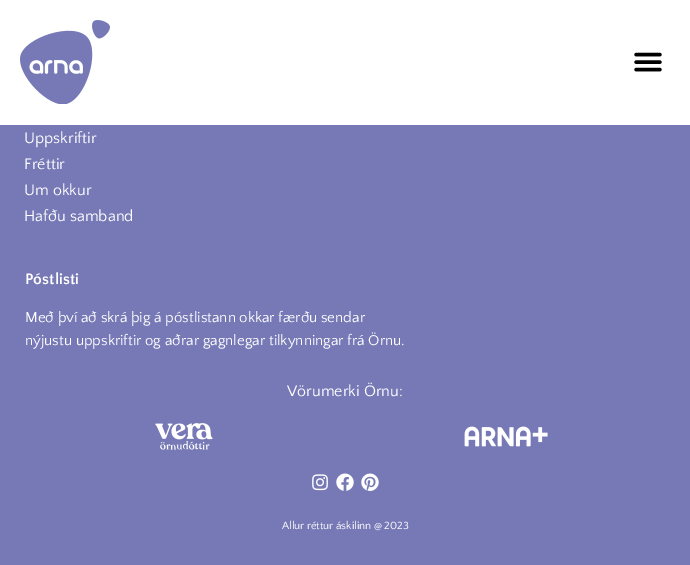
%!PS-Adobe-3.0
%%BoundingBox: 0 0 690 565
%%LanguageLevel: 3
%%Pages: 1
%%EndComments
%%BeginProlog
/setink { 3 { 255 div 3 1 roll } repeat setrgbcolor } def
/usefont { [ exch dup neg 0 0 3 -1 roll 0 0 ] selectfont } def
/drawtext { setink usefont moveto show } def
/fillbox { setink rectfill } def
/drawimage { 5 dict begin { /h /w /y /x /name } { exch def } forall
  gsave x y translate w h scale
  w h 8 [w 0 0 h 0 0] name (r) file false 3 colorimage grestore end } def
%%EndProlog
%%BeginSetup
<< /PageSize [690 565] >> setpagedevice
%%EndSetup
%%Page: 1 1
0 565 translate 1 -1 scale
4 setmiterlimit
0 0 690 565 119 121 182 fillbox
0 0 690 125 255 255 255 fillbox
(assets/img1.rgb) 20 20 90 84 drawimage
(assets/img2.rgb) 634 52 28 20 drawimage
(Uppskriftir) 24 143 /QuattrocentoSans-Regular 16 255 255 255 drawtext
(Fréttir) 24 169 /QuattrocentoSans-Regular 16 255 255 255 drawtext
(Um okkur) 24 195 /QuattrocentoSans-Regular 16 255 255 255 drawtext
(Hafðu samband) 24 221 /QuattrocentoSans-Regular 16 255 255 255 drawtext
(Póstlisti) 25 284 /QuattrocentoSans-Bold 16 255 255 255 drawtext
(Með því að skrá þig á póstlistann okkar færðu sendar) 25 322 /QuattrocentoSans-Regular 15 255 255 255 drawtext
(nýjustu uppskriftir og aðrar gagnlegar tilkynningar frá Örnu.) 25 345 /QuattrocentoSans-Regular 15 255 255 255 drawtext
(Vörumerki Örnu:) 287 396 /QuattrocentoSans-Regular 16 255 255 255 drawtext
(assets/img3.rgb) 155 423 58 27 drawimage
(assets/img4.rgb) 464 426 84 21 drawimage
(assets/img5.rgb) 312 474 16 17 drawimage
(assets/img6.rgb) 336 473 18 18 drawimage
(assets/img7.rgb) 361 473 18 18 drawimage
(Allur réttur áskilinn @ 2023) 282 529 /QuattrocentoSans-Regular 11 255 255 255 drawtext
showpage
%%EOF
